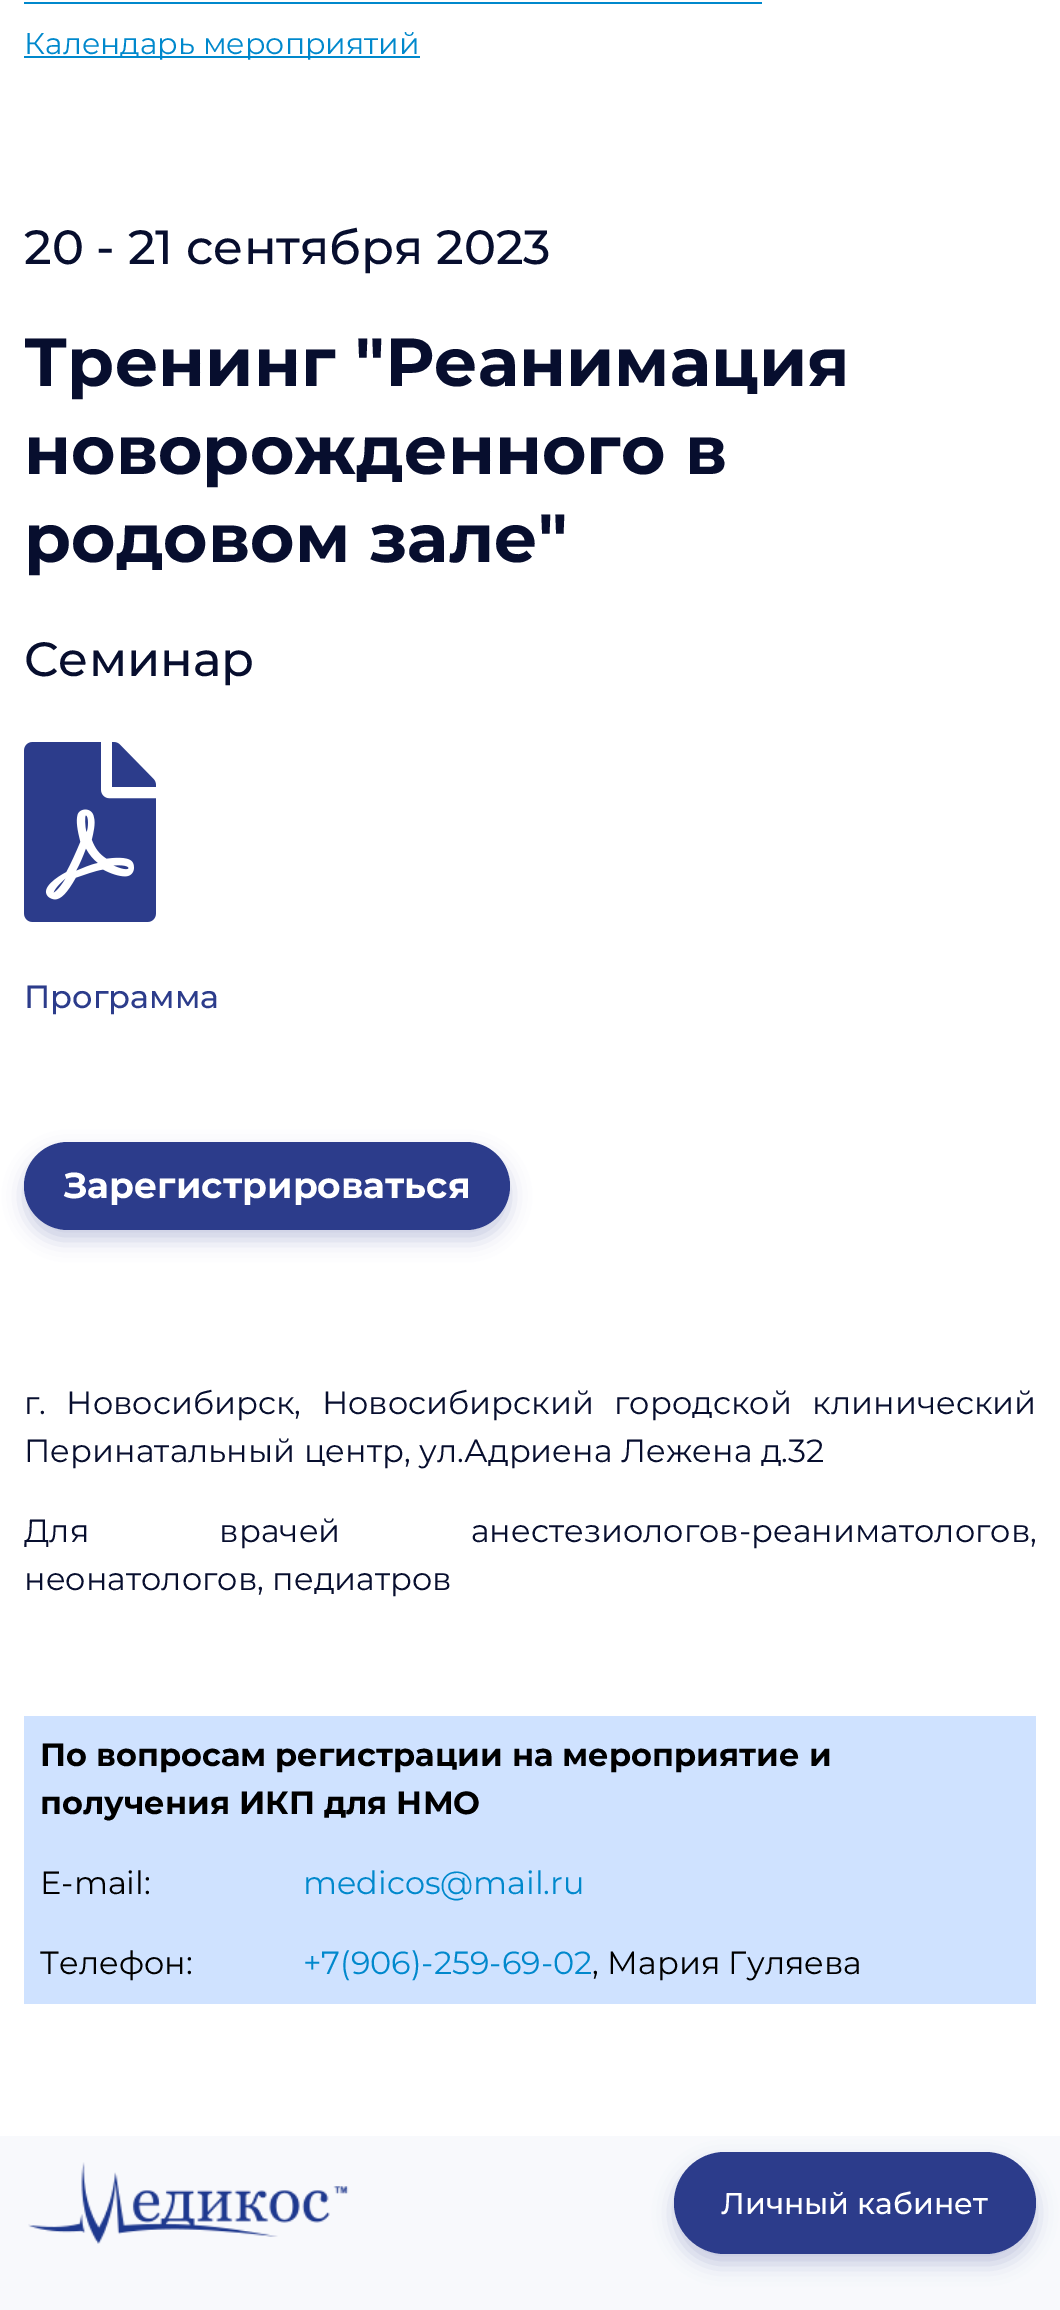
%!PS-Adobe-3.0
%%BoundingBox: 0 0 1060 2310
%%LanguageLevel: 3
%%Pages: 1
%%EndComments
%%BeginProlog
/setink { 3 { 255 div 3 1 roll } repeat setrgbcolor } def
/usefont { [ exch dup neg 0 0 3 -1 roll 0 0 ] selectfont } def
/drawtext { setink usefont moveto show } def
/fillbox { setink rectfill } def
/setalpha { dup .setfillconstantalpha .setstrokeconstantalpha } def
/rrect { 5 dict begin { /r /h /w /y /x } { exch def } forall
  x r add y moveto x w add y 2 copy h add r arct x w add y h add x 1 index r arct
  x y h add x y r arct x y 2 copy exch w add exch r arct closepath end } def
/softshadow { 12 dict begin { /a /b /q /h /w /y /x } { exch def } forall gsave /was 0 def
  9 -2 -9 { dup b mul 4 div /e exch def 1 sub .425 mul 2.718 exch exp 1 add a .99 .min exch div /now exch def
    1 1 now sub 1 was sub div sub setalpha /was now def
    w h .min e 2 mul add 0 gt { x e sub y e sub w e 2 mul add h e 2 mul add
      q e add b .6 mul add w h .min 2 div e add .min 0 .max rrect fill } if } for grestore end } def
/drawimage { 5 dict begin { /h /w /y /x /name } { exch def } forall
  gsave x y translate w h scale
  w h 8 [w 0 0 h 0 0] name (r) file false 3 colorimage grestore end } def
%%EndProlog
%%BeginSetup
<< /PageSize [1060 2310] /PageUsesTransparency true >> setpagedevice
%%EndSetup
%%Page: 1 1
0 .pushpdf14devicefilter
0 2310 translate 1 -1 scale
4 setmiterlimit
0 0 1060 2310 255 255 255 fillbox
24 2 738 2 0 136 204 fillbox
24 56 396 2 0 136 204 fillbox
(Календарь мероприятий) 24 54 /Montserrat-Regular 30 0 136 204 drawtext
(20 - 21 сентября 2023) 24 264 /Montserrat-Medium 48 7 14 46 drawtext
(Тренинг "Реанимация) 24 386 /Montserrat-Bold 68 7 14 46 drawtext
(новорожденного в) 24 474 /Montserrat-Bold 68 7 14 46 drawtext
(родовом зале") 24 562 /Montserrat-Bold 68 7 14 46 drawtext
(Семинар) 24 676 /Montserrat-Medium 48 7 14 46 drawtext
(assets/img1.rgb) 24 742 132 180 drawimage
(Программа) 24 1008 /Montserrat-Medium 32 44 60 139 drawtext
24 1152 486 88 44 10 0.25 softshadow
24 1142 486 88 44 rrect fill
(Зарегистрироваться) 64 1198 /Montserrat-Bold 36 255 255 255 drawtext
/Montserrat-Regular 32 usefont
7 14 46 setink
24 1414 moveto 12 0 32 (г. Новосибирск, Новосибирский городской клинический) widthshow
(Перинатальный центр, ул.Адриена Лежена д.32) 24 1462 /Montserrat-Regular 32 7 14 46 drawtext
24 1542 moveto 122 0 32 (Для врачей анестезиологов-реаниматологов,) widthshow
(неонатологов, педиатров) 24 1590 /Montserrat-Regular 32 7 14 46 drawtext
24 1716 1012 128 207 226 255 fillbox
(По вопросам регистрации на мероприятие и) 40 1766 /Montserrat-Bold 32 0 0 0 drawtext
(получения ИКП для НМО) 40 1814 /Montserrat-Bold 32 0 0 0 drawtext
24 1844 1012 80 207 226 255 fillbox
(E-mail:) 40 1894 /Montserrat-Regular 32 0 0 0 drawtext
(medicos@mail.ru) 303 1894 /Montserrat-Regular 32 0 136 204 drawtext
24 1924 1012 80 207 226 255 fillbox
(Телефон:) 40 1974 /Montserrat-Regular 32 0 0 0 drawtext
(+7\(906\)-259-69-02) 303 1974 /Montserrat-Regular 32 0 136 204 drawtext
(, Мария Гуляева) 592 1974 /Montserrat-Regular 32 0 0 0 drawtext
0 2136 1060 174 248 249 252 fillbox
(assets/img2.rgb) 28 2162 321 82 drawimage
44 60 139 setink
674 2162 362 102 51 10 0.25 softshadow
674 2152 362 102 51 rrect fill
(Личный кабинет) 721 2214 /Montserrat-Medium 30 255 255 255 drawtext
.poppdf14devicefilter showpage
%%EOF
